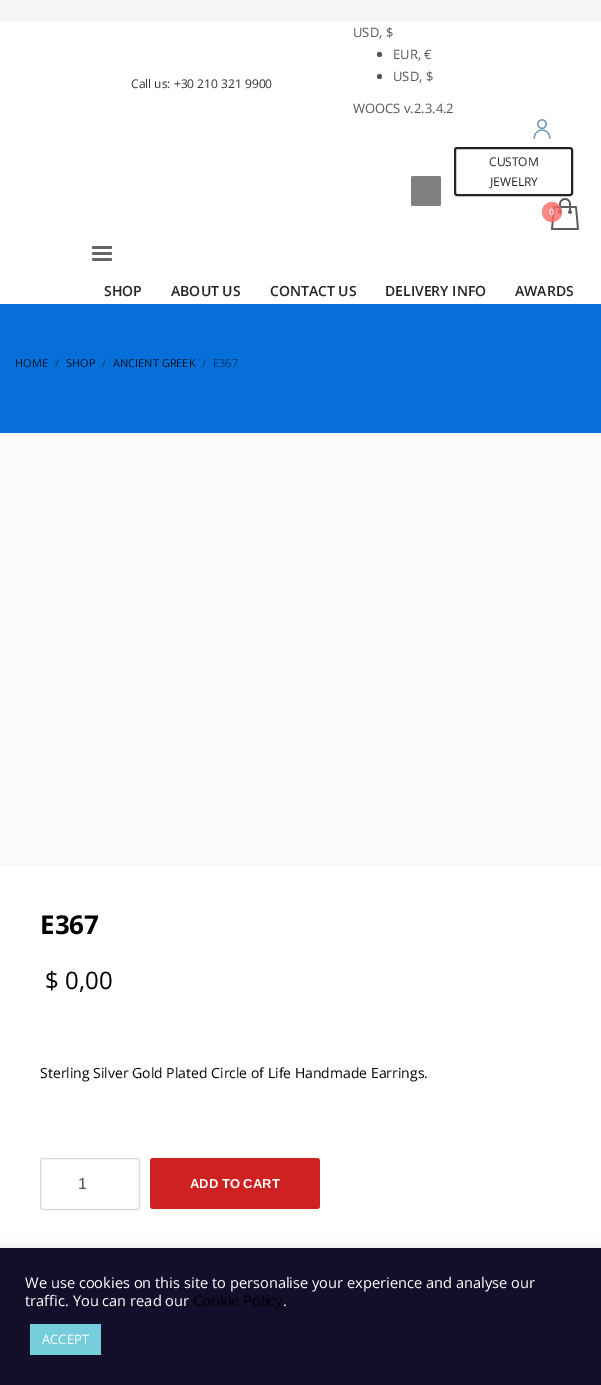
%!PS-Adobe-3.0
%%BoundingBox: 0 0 601 1385
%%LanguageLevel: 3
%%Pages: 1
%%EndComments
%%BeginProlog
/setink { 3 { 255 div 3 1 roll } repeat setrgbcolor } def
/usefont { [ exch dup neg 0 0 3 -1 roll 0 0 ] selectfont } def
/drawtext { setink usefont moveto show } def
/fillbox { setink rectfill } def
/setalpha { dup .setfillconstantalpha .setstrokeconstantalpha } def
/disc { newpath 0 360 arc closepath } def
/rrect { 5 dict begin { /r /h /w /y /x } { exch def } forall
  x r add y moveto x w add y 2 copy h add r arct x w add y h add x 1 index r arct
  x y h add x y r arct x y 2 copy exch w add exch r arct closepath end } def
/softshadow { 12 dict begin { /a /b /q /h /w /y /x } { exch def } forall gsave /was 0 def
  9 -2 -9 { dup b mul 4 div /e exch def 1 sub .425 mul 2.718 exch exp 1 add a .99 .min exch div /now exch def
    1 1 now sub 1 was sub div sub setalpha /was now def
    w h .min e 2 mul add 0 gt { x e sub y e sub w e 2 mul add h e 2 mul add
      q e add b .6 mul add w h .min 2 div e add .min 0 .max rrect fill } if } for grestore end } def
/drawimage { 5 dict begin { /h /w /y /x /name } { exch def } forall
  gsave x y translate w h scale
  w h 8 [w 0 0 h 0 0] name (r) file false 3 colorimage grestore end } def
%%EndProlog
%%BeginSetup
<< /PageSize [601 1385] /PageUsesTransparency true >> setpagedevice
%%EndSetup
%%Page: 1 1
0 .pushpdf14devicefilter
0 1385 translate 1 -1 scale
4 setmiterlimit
0 0 601 1385 245 245 245 fillbox
0 21 601 283 255 255 255 fillbox
(Call us: +30 210 321 9900) 131 88 /OpenSans-Regular 12 51 51 51 drawtext
(USD, $) 353 37 /OpenSans-Regular 13 83 83 83 drawtext
379.5 54.5 2.5 disc fill
(EUR, €) 393 59 /OpenSans-Regular 13 83 83 83 drawtext
379.5 76.5 2.5 disc fill
(USD, $) 393 81 /OpenSans-Regular 13 83 83 83 drawtext
(WOOCS v.2.3.4.2) 353 113 /OpenSans-Regular 13 83 83 83 drawtext
(assets/img1.rgb) 533 119 18 20 drawimage
128 128 128 setink
411 176 30 30 2 rrect fill
36 36 36 setink
2 setlinewidth
455 148 117 47 2 rrect stroke
(CUSTOM) 489 166 /OpenSans-Regular 12 36 36 36 drawtext
(JEWELRY) 490 186 /OpenSans-Regular 12 36 36 36 drawtext
(assets/img2.rgb) 551 198 28 32 drawimage
0.8 setalpha
255 102 102 setink
552 212 10 disc fill
1 setalpha
(0) 549 215 /OpenSans-SemiBold 9 253 229 229 drawtext
102 102 102 setink
92 246 20 3 1.5 rrect fill
92 252 20 3 1.5 rrect fill
92 258 20 3 1.5 rrect fill
(SHOP) 104 296 /OpenSans-SemiBold 14 36 36 36 drawtext
(ABOUT US) 171 296 /OpenSans-SemiBold 14 36 36 36 drawtext
(CONTACT US) 270 296 /OpenSans-SemiBold 14 36 36 36 drawtext
(DELIVERY INFO) 385 296 /OpenSans-SemiBold 14 36 36 36 drawtext
(AWARDS) 515 296 /OpenSans-SemiBold 14 36 36 36 drawtext
0 304 601 129 6 111 217 fillbox
(HOME) 15 367 /OpenSans-Regular 11 1 22 43 drawtext
(/) 55 367 /OpenSans-Regular 11 3 56 109 drawtext
(SHOP) 66 367 /OpenSans-Regular 11 1 22 43 drawtext
(/) 102 367 /OpenSans-Regular 11 3 56 109 drawtext
(ANCIENT GREEK) 113 367 /OpenSans-Regular 11 1 22 43 drawtext
(/) 202 367 /OpenSans-Regular 11 3 56 109 drawtext
(E367) 213 367 /OpenSans-Regular 11 3 56 109 drawtext
0 866 601 382 255 255 255 fillbox
0 433 601 433 250 250 250 fillbox
(E367) 40 934 /OpenSans-Bold 26 0 0 0 drawtext
($ 0,00) 45 989 /OpenSans-Regular 24 0 0 0 drawtext
(Sterling Silver Gold Plated Circle of Life Handmade Earrings.) 40 1078 /OpenSans-Regular 14 0 0 0 drawtext
217 217 217 setink
1 setlinewidth
40.5 1158.5 99 51 2.5 rrect stroke
(1) 78 1189 /LiberationSans-Regular 16 83 83 83 drawtext
205 33 34 setink
150 1158 170 51 3 rrect fill
(ADD TO CART) 190 1188 /LiberationSans-Bold 13 255 255 255 drawtext
172 171 171 setink
0 1247 601 137 0 5 0.3 softshadow
0 1248 601 137 19 15 42 fillbox
(We use cookies on this site to personalise your experience and analyse our) 25 1288 /OpenSans-Regular 14.65 255 255 255 drawtext
(traffic. You can read our) 25 1306 /OpenSans-Regular 14.65 255 255 255 drawtext
(Cookie Policy) 193 1306 /OpenSans-Regular 14.65 0 0 0 drawtext
(.) 283 1306 /OpenSans-Regular 14.65 255 255 255 drawtext
30 1324 71 31 118 206 220 fillbox
(ACCEPT) 42 1344 /OpenSans-Regular 13 255 255 255 drawtext
.poppdf14devicefilter showpage
%%EOF
